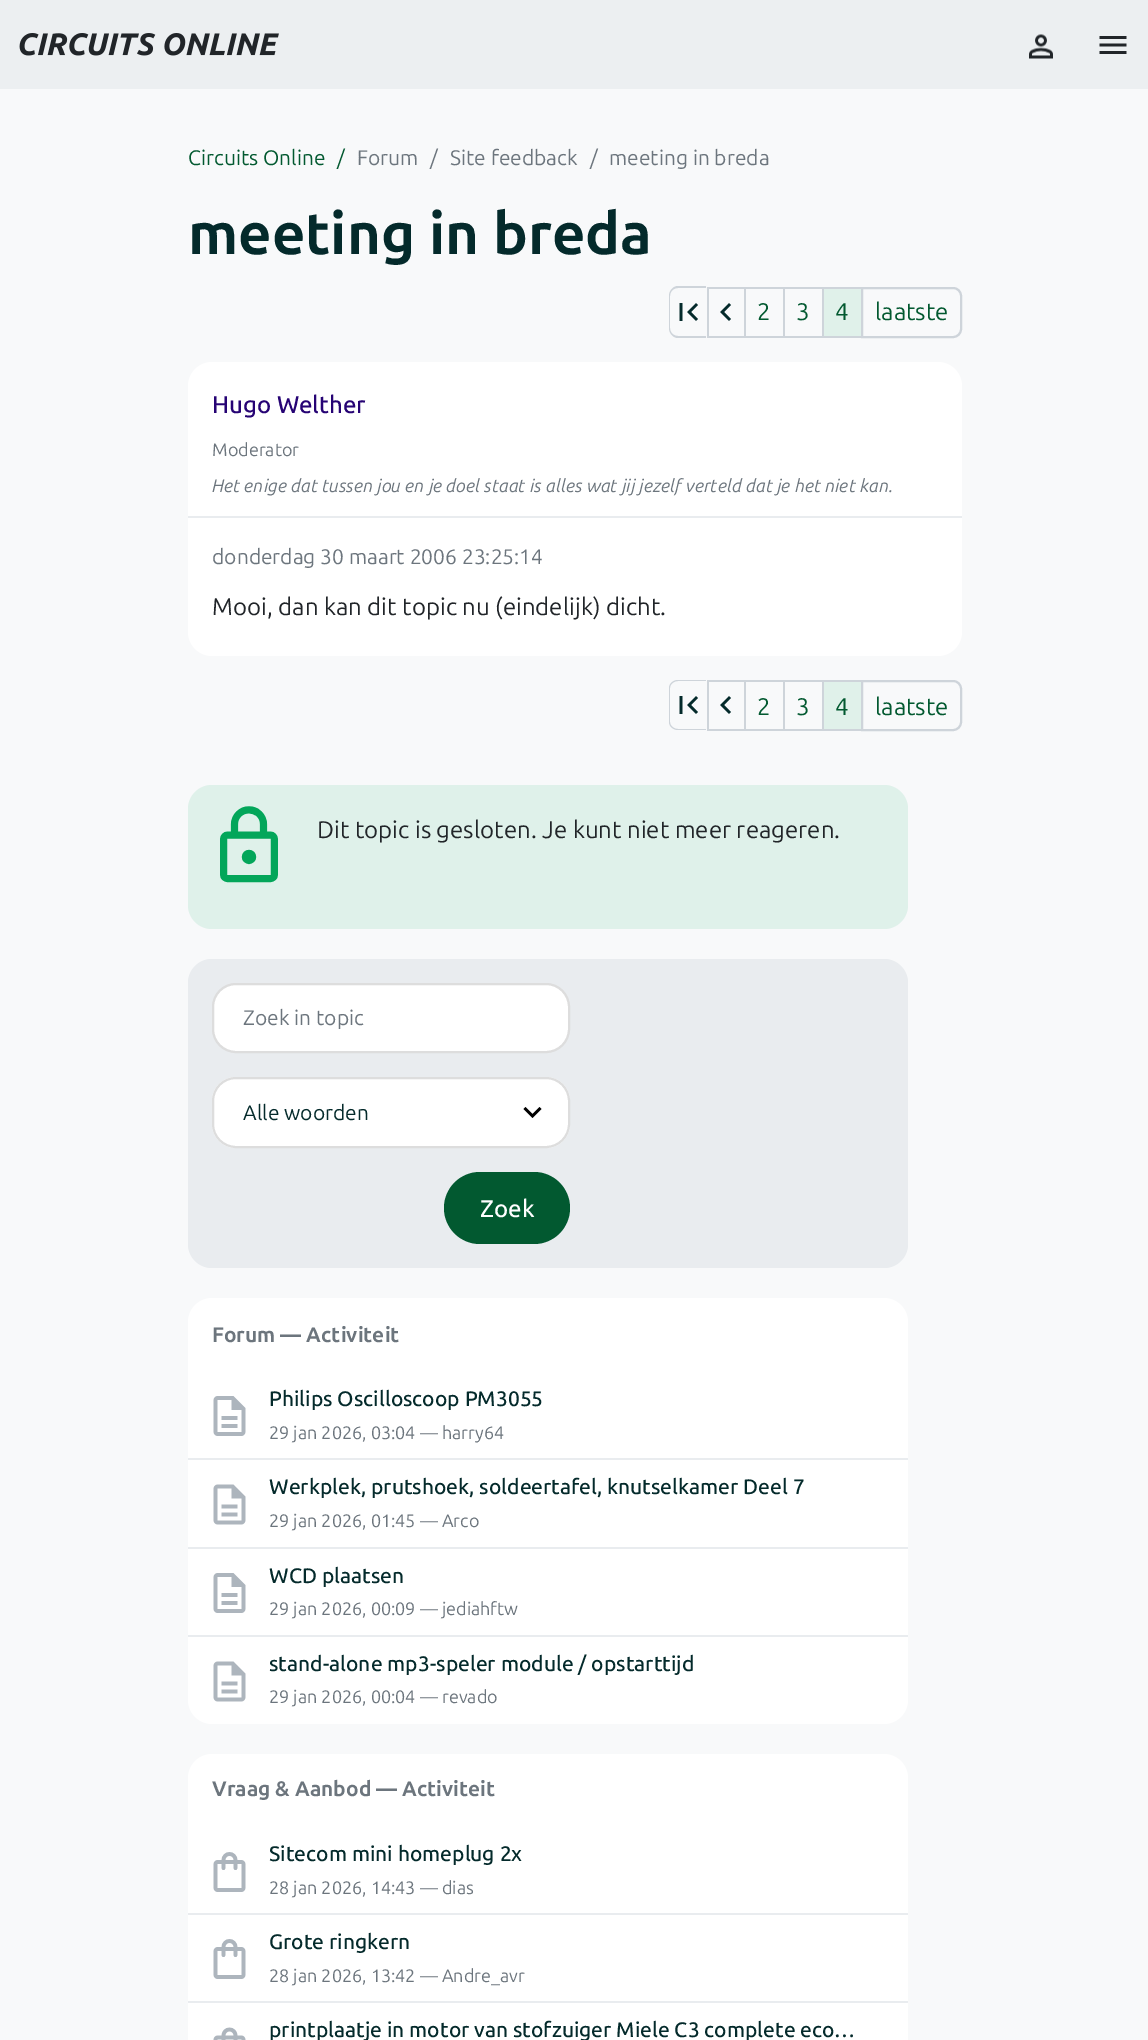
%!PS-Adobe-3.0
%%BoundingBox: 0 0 1148 2040
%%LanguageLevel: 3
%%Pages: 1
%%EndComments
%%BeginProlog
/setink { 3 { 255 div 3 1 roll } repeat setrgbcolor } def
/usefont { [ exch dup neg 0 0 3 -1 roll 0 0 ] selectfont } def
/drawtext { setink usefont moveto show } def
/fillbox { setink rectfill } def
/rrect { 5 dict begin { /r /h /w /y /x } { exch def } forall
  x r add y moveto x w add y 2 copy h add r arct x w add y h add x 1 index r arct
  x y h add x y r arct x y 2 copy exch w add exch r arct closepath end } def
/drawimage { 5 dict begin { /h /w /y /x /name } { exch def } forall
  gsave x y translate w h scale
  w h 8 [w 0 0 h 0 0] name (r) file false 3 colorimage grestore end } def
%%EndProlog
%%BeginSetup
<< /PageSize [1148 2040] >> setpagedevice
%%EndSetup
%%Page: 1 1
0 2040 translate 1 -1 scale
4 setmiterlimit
0 0 1148 2040 248 249 250 fillbox
0 0 1148 89 236 239 241 fillbox
(assets/img1.rgb) 19 33 260 23 drawimage
(assets/img2.rgb) 1029 34 24 25 drawimage
(assets/img3.rgb) 1099 36 28 18 drawimage
(Circuits Online) 188 165 /Ubuntu-Regular 21 2 89 48 drawtext
(/) 337 165 /Ubuntu-Regular 21 2 89 48 drawtext
(Forum) 357 165 /Ubuntu-Regular 21 108 117 125 drawtext
(/) 430 165 /Ubuntu-Regular 21 108 117 125 drawtext
(Site feedback) 450 165 /Ubuntu-Regular 21 108 117 125 drawtext
(/) 590 165 /Ubuntu-Regular 21 108 117 125 drawtext
(meeting in breda) 609 165 /Ubuntu-Regular 21 108 117 125 drawtext
(meeting in breda) 188 254 /Ubuntu-Bold 58.25 4 42 43 drawtext
206 212 218 setink
678 286 moveto 706 286 lineto 706 338 lineto 678 338 lineto 673 338 669 333 669 328 curveto 669 296 lineto 669 291 673 286 678 286 curveto closepath 678 288 moveto 706 288 lineto 706 336 lineto 678 336 lineto 674 336 670 333 670 328 curveto 670 296 lineto 670 291 674 288 678 288 curveto closepath eofill
(assets/img4.rgb) 679 303 19 18 drawimage
707 287 154 2 206 212 218 fillbox
707 336 154 2 206 212 218 fillbox
707 287 2 51 206 212 218 fillbox
(assets/img5.rgb) 720 303 11 18 drawimage
2 setlinewidth
862 288 moveto 953 288 lineto 957.5 288 961 291.5 961 296 curveto 961 329 lineto 961 333.5 957.5 337 953 337 curveto 862 337 lineto closepath stroke
(laatste) 875 320 /Ubuntu-Regular 24 2 89 48 drawtext
744 287 2 51 206 212 218 fillbox
(2) 757 320 /Ubuntu-Regular 24 2 89 48 drawtext
783 287 2 51 206 212 218 fillbox
(3) 796 320 /Ubuntu-Regular 24 2 89 48 drawtext
824 289 37 47 224 241 234 fillbox
822 287 2 51 206 212 218 fillbox
(4) 835 320 /Ubuntu-Regular 24 2 89 48 drawtext
255 255 255 setink
188 362 774 294 24 rrect fill
(Hugo Welther) 212 413 /Ubuntu-Medium 24 38 3 116 drawtext
(Moderator) 212 456 /Ubuntu-Regular 18 108 117 125 drawtext
(Het enige dat tussen jou en je doel staat is alles wat jij jezelf verteld dat je het niet kan.) 212 492 /Ubuntu-Italic 18 108 117 125 drawtext
188 516 774 2 233 236 239 fillbox
(donderdag 30 maart 2006 23:25:14) 212 564 /Ubuntu-Regular 21 108 117 125 drawtext
(Mooi, dan kan dit topic nu \(eindelijk\) dicht.) 212 615 /Ubuntu-Regular 24 33 37 41 drawtext
206 212 218 setink
678 680 moveto 706 680 lineto 706 730 lineto 678 730 lineto 673 730 669 726 669 722 curveto 669 688 lineto 669 684 673 680 678 680 curveto closepath 678 681 moveto 706 681 lineto 706 729 lineto 678 729 lineto 674 729 670 726 670 722 curveto 670 688 lineto 670 684 674 681 678 681 curveto closepath eofill
(assets/img4.rgb) 679 696 19 18 drawimage
707 680 154 2 206 212 218 fillbox
707 729 154 2 206 212 218 fillbox
707 680 2 51 206 212 218 fillbox
(assets/img5.rgb) 720 696 11 18 drawimage
862 681 moveto 953 681 lineto 957.5 681 961 684.5 961 689 curveto 961 722 lineto 961 726.5 957.5 730 953 730 curveto 862 730 lineto closepath stroke
(laatste) 875 715 /Ubuntu-Regular 24 2 89 48 drawtext
744 680 2 51 206 212 218 fillbox
(2) 757 715 /Ubuntu-Regular 24 2 89 48 drawtext
783 680 2 51 206 212 218 fillbox
(3) 796 715 /Ubuntu-Regular 24 2 89 48 drawtext
824 682 37 47 224 241 234 fillbox
822 680 2 51 206 212 218 fillbox
(4) 835 715 /Ubuntu-Regular 24 2 89 48 drawtext
223 241 234 setink
188 785 720 144 24 rrect fill
(assets/img6.rgb) 220 806 58 77 drawimage
(Dit topic is gesloten. Je kunt niet meer reageren.) 317 838 /Ubuntu-Regular 24 33 37 41 drawtext
233 236 239 setink
188 959 720 309 24 rrect fill
255 255 255 setink
213 984 356 68 23 rrect gsave fill grestore
221 221 221 setink
stroke
(Zoek in topic) 243 1025 /Ubuntu-Regular 21 108 117 125 drawtext
255 255 255 setink
212 1077 358 71 24 rrect fill
0 0 0 setink
532.5 1118 moveto 523.5 1109 lineto 525.5 1107 lineto 532.5 1114 lineto 539.5 1107 lineto 541.5 1109 lineto closepath fill
221 221 221 setink
213 1078 356 69 23 rrect stroke
(Alle woorden) 243 1120 /Ubuntu-Regular 21 4 42 43 drawtext
2 89 48 setink
444 1172 126 72 36 rrect fill
(Zoek) 480 1217 /Ubuntu-Medium 24 255 255 255 drawtext
188 1298 720 426 24 rrect fill
(Forum — Activiteit) 212 1342 /Ubuntu-Bold 21 108 117 125 drawtext
188 1458 720 2 233 236 239 fillbox
(assets/img7.rgb) 213 1396 33 40 drawimage
(Philips Oscilloscoop PM3055) 269 1406 /Ubuntu-Medium 21 4 42 43 drawtext
(29 jan 2026, 03:04 — harry64) 269 1439 /Ubuntu-Regular 18 108 117 125 drawtext
188 1547 720 2 233 236 239 fillbox
(assets/img8.rgb) 213 1484 33 41 drawimage
(Werkplek, prutshoek, soldeertafel, knutselkamer Deel 7) 269 1494 /Ubuntu-Medium 21 4 42 43 drawtext
(29 jan 2026, 01:45 — Arco) 269 1527 /Ubuntu-Regular 18 108 117 125 drawtext
188 1635 720 2 233 236 239 fillbox
(assets/img7.rgb) 213 1573 33 40 drawimage
(WCD plaatsen) 269 1583 /Ubuntu-Medium 21 4 42 43 drawtext
(29 jan 2026, 00:09 — jediahftw) 269 1615 /Ubuntu-Regular 18 108 117 125 drawtext
(assets/img8.rgb) 213 1661 33 41 drawimage
(stand-alone mp3-speler module / opstarttijd) 269 1671 /Ubuntu-Medium 21 4 42 43 drawtext
(29 jan 2026, 00:04 — revado) 269 1703 /Ubuntu-Regular 18 108 117 125 drawtext
255 255 255 setink
188 1754 720 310 24 rrect fill
(Vraag & Aanbod — Activiteit) 212 1796 /Ubuntu-Bold 21 108 117 125 drawtext
188 1913 720 2 233 236 239 fillbox
(assets/img9.rgb) 213 1852 33 40 drawimage
(Sitecom mini homeplug 2x) 269 1861 /Ubuntu-Medium 21 4 42 43 drawtext
(28 jan 2026, 14:43 — dias) 269 1894 /Ubuntu-Regular 18 108 117 125 drawtext
188 2001 720 2 233 236 239 fillbox
(assets/img9.rgb) 213 1939 33 40 drawimage
(Grote ringkern) 269 1949 /Ubuntu-Medium 21 4 42 43 drawtext
(28 jan 2026, 13:42 — Andre_avr) 269 1982 /Ubuntu-Regular 18 108 117 125 drawtext
(assets/img10.rgb) 213 2027 33 13 drawimage
(printplaatje in motor van stofzuiger Miele C3 complete eco…) 269 2037 /Ubuntu-Medium 21 4 42 43 drawtext
showpage
%%EOF
